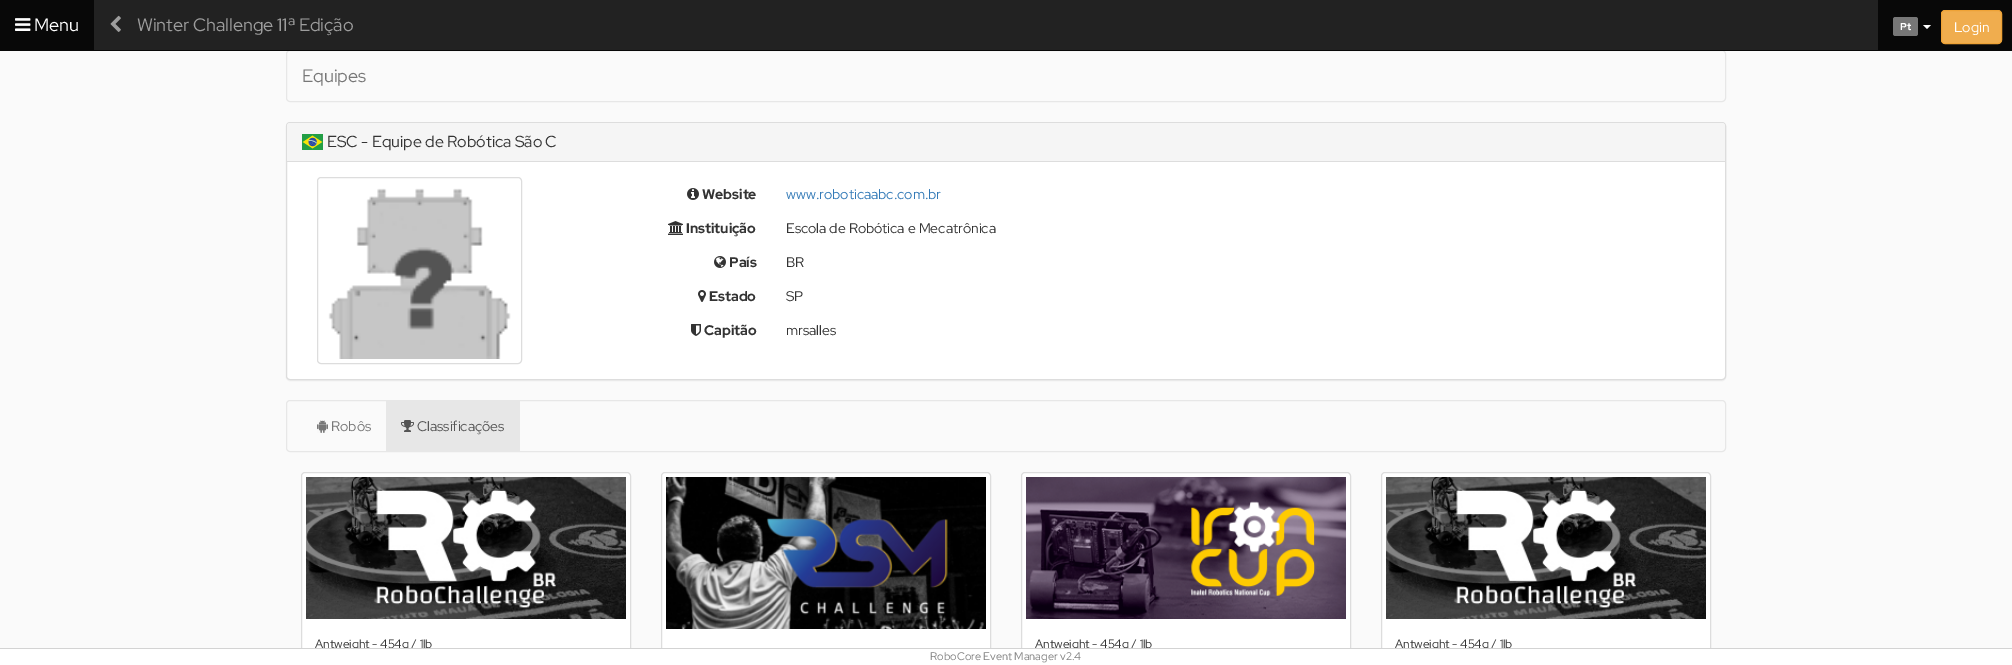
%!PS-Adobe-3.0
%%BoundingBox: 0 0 2012 665
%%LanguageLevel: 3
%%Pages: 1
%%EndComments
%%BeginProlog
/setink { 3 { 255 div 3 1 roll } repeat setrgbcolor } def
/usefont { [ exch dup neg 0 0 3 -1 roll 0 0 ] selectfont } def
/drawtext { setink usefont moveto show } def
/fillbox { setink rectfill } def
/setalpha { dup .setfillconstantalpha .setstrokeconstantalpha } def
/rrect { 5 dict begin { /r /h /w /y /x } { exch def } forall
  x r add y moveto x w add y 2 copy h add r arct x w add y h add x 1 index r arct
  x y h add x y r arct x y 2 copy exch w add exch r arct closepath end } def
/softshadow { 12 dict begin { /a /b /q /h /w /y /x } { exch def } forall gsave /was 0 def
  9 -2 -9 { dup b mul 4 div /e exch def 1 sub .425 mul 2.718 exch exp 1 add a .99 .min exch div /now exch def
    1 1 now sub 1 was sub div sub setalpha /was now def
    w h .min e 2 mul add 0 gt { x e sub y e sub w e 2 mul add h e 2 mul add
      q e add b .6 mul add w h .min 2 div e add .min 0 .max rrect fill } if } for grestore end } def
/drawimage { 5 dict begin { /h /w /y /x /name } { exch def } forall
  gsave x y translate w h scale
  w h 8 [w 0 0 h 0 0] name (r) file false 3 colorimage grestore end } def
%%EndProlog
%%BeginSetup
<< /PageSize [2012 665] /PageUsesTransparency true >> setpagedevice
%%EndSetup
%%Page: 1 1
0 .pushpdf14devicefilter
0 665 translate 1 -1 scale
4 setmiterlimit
0 0 2012 665 250 250 250 fillbox
94 0 1784 50 34 34 34 fillbox
231 231 231 setink
286.5 50.5 1439 51 3.5 rrect stroke
0 50 2012 1 8 8 8 fillbox
0 0 94 50 8 8 8 fillbox
(assets/img1.rgb) 15 18 16 13 drawimage
(Menu) 34 31 /RedHatDisplay-Regular 18 255 255 255 drawtext
(assets/img2.rgb) 110 15 11 17 drawimage
(Winter Challenge 11ª Edição) 137 31 /RedHatDisplay-Regular 18 157 157 157 drawtext
1878 0 134 50 8 8 8 fillbox
119 119 119 setink
1893 17 25 19 2.5 rrect fill
(Pt) 1900 30 /RedHatDisplay-Bold 10 255 255 255 drawtext
1923 25 moveto 1931 25 lineto 1927 29 lineto closepath fill
240 173 78 setink
1941.5 10.5 60 33 3.5 rrect gsave fill grestore
238 162 54 setink
stroke
(Login) 1954 32 /RedHatDisplay-Regular 14 255 255 255 drawtext
(Equipes) 302 82 /RedHatDisplay-Regular 18 119 119 119 drawtext
0 0 0 setink
286 123 1440 258 4 0.5 0.05 softshadow
255 255 255 setink
286.5 122.5 1439 257 3.5 rrect gsave fill grestore
221 221 221 setink
stroke
245 245 245 setink
290 123 moveto 1722 123 lineto 1723.5 123 1725 124.5 1725 126 curveto 1725 162 lineto 287 162 lineto 287 126 lineto 287 124.5 288.5 123 290 123 curveto closepath fill
287 161 1438 1 221 221 221 fillbox
(assets/img3.rgb) 302 134 21 16 drawimage
(ESC - Equipe de Robótica São C) 327 147 /RedHatDisplay-Regular 16 51 51 51 drawtext
221 221 221 setink
317.5 177.5 204 186 3.5 rrect stroke
(assets/img4.rgb) 328 188 183 171 drawimage
(assets/img5.rgb) 687 188 12 12 drawimage
(Website) 702 199 /RedHatDisplay-Bold 14 51 51 51 drawtext
(www.roboticaabc.com.br) 786 199 /RedHatDisplay-Regular 14 51 122 183 drawtext
(assets/img6.rgb) 668 221 15 14 drawimage
(Instituição) 686 233 /RedHatDisplay-Bold 14 51 51 51 drawtext
(Escola de Robótica e Mecatrônica) 786 233 /RedHatDisplay-Regular 14 51 51 51 drawtext
(assets/img7.rgb) 714 256 12 12 drawimage
(País) 729 267 /RedHatDisplay-Bold 14 51 51 51 drawtext
(BR) 786 267 /RedHatDisplay-Regular 14 51 51 51 drawtext
(assets/img8.rgb) 698 290 8 12 drawimage
(Estado) 709 301 /RedHatDisplay-Bold 14 51 51 51 drawtext
(SP) 786 301 /RedHatDisplay-Regular 14 51 51 51 drawtext
(assets/img9.rgb) 691 324 10 12 drawimage
(Capitão) 704 335 /RedHatDisplay-Bold 14 51 51 51 drawtext
(mrsalles) 786 335 /RedHatDisplay-Regular 14 51 51 51 drawtext
231 231 231 setink
286.5 400.5 1439 51 3.5 rrect stroke
(assets/img10.rgb) 317 420 11 13 drawimage
(Robôs) 331 431 /RedHatDisplay-Regular 14 119 119 119 drawtext
386 401 134 50 231 231 231 fillbox
(assets/img11.rgb) 401 420 13 12 drawimage
(Classificações) 417 431 /RedHatDisplay-Regular 14 85 85 85 drawtext
255 255 255 setink
305 472 moveto 627 472 lineto 629 472 631 474 631 476 curveto 631 665 lineto 301 665 lineto 301 476 lineto 301 474 303 472 305 472 curveto closepath fill
221 221 221 setink
301.5 472.5 329 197 3.5 rrect stroke
(assets/img12.rgb) 306 477 320 142 drawimage
(Antweight - 454g / 1lb) 315 648 /RedHatDisplay-Regular 12 51 51 51 drawtext
255 255 255 setink
665 472 moveto 987 472 lineto 989 472 991 474 991 476 curveto 991 665 lineto 661 665 lineto 661 476 lineto 661 474 663 472 665 472 curveto closepath fill
221 221 221 setink
661.5 472.5 329 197 3.5 rrect stroke
(assets/img13.rgb) 666 477 320 152 drawimage
255 255 255 setink
1025 472 moveto 1347 472 lineto 1349 472 1351 474 1351 476 curveto 1351 665 lineto 1021 665 lineto 1021 476 lineto 1021 474 1023 472 1025 472 curveto closepath fill
221 221 221 setink
1021.5 472.5 329 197 3.5 rrect stroke
(assets/img14.rgb) 1026 477 320 142 drawimage
(Antweight - 454g / 1lb) 1035 648 /RedHatDisplay-Regular 12 51 51 51 drawtext
255 255 255 setink
1385 472 moveto 1707 472 lineto 1709 472 1711 474 1711 476 curveto 1711 665 lineto 1381 665 lineto 1381 476 lineto 1381 474 1383 472 1385 472 curveto closepath fill
221 221 221 setink
1381.5 472.5 329 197 3.5 rrect stroke
(assets/img12.rgb) 1386 477 320 142 drawimage
(Antweight - 454g / 1lb) 1395 648 /RedHatDisplay-Regular 12 51 51 51 drawtext
0 649 2012 16 255 255 255 fillbox
0 648 2012 1 211 211 211 fillbox
(RoboCore Event Manager v2.4) 930 660 /RedHatDisplay-Regular 11 128 128 128 drawtext
.poppdf14devicefilter showpage
%%EOF
